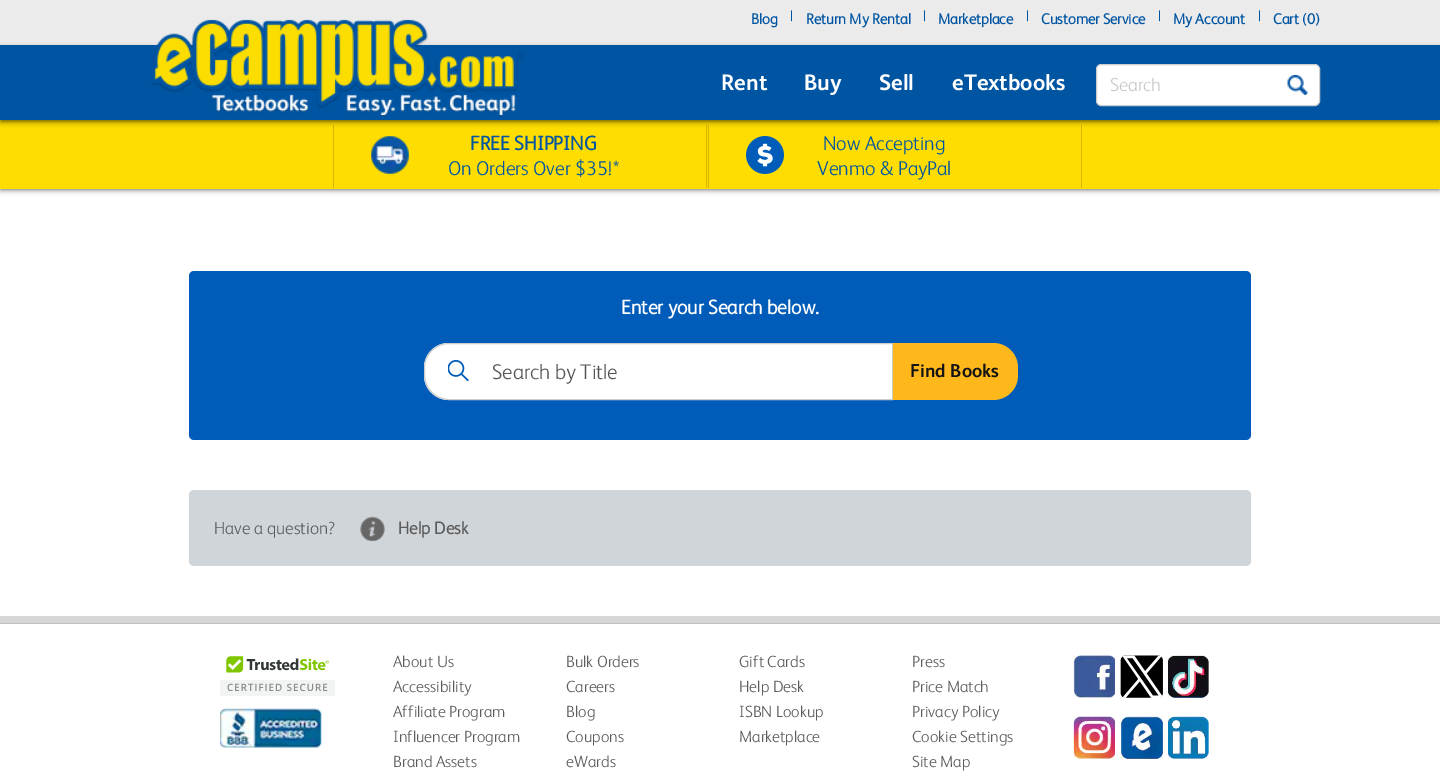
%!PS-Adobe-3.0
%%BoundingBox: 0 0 1440 776
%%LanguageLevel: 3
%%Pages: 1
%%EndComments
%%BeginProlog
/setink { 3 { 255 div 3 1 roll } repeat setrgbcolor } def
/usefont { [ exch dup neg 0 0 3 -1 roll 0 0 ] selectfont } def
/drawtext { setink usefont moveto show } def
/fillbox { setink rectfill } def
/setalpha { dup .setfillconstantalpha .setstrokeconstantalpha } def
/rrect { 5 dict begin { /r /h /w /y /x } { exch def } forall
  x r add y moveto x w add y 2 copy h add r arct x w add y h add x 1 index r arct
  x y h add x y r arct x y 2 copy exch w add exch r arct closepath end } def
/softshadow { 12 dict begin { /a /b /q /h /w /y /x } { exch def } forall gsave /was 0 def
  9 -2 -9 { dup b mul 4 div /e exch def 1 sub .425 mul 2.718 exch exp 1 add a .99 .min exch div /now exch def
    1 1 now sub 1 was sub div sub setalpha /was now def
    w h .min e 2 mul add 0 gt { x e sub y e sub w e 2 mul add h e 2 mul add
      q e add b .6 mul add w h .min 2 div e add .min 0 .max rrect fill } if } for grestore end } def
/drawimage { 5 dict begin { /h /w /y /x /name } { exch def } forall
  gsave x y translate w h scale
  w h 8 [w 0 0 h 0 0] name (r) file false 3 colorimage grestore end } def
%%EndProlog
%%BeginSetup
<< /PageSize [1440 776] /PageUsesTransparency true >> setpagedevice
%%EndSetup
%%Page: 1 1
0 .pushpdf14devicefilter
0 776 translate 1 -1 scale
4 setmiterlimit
0 0 1440 776 255 255 255 fillbox
0 0 1440 45 235 235 235 fillbox
(Blog) 751 24 /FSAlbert-Bold 15 0 85 163 drawtext
(|) 790 21 /FSAlbert-Light 15 0 85 163 drawtext
(Return My Rental) 806 24 /FSAlbert-Bold 15 0 85 163 drawtext
(|) 923 21 /FSAlbert-Light 15 0 85 163 drawtext
(Marketplace) 938 24 /FSAlbert-Bold 15 0 85 163 drawtext
(|) 1026 21 /FSAlbert-Light 15 0 85 163 drawtext
(Customer Service) 1041 24 /FSAlbert-Bold 15 0 85 163 drawtext
(|) 1158 21 /FSAlbert-Light 15 0 85 163 drawtext
(My Account) 1173 24 /FSAlbert-Bold 15 0 85 163 drawtext
(|) 1258 21 /FSAlbert-Light 15 0 85 163 drawtext
(Cart \(0\)) 1273 24 /FSAlbert-Bold 15 0 85 163 drawtext
0 0 0 setink
1 123 1438 66 0 3 0.75 softshadow
0 120 1440 69 255 221 0 fillbox
706 125 1 63 214 181 0 fillbox
333 125 1 63 214 181 0 fillbox
1081 125 1 63 214 181 0 fillbox
708 125 1 63 214 181 0 fillbox
0 0 0 setink
1 49 1438 72 0 3 0.75 softshadow
0 45 1440 75 0 85 163 fillbox
(assets/img1.rgb) 151 19 373 99 drawimage
(Rent) 721 90 /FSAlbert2-Bold 22.5 255 255 255 drawtext
(Buy) 804 90 /FSAlbert2-Bold 22.5 255 255 255 drawtext
(Sell) 879 90 /FSAlbert2-Bold 22.5 255 255 255 drawtext
(eTextbooks) 952 90 /FSAlbert2-Bold 22.5 255 255 255 drawtext
1096.5 64.5 223 41 4.5 rrect gsave fill grestore
204 204 204 setink
stroke
(Search) 1110 91 /FSAlbert-Light 18.75 200 200 200 drawtext
(assets/img2.rgb) 1287 75 21 20 drawimage
(assets/img3.rgb) 371 136 38 38 drawimage
(FREE SHIPPING) 470 150 /FSAlbert-Bold 20 0 85 163 drawtext
(On Orders Over $35!*) 448 175 /FSAlbert-Light 20 0 85 163 drawtext
(assets/img4.rgb) 746 136 38 38 drawimage
(Now Accepting) 823 150 /FSAlbert-Light 20 0 85 163 drawtext
(Venmo & PayPal) 817 175 /FSAlbert-Light 20 0 85 163 drawtext
0 92 184 setink
189 271 1062 169 5 rrect fill
(Enter your Search below.) 621 314 /FSAlbert-Bold 20 255 255 255 drawtext
449 343 moveto 893 343 lineto 893 400 lineto 449 400 lineto 435 400 424 389 424 375 curveto 424 368 lineto 424 354 435 343 449 343 curveto closepath fill
(assets/img5.rgb) 448 360 21 21 drawimage
204 204 204 setink
449 343.5 moveto 892.5 343.5 lineto 892.5 399.5 lineto 449 399.5 lineto 435.5 399.5 424.5 388.5 424.5 375 curveto 424.5 368 lineto 424.5 354.5 435.5 343.5 449 343.5 curveto closepath stroke
(Search by Title) 492 379 /FSAlbert-Light 21.25 85 85 85 drawtext
255 184 28 setink
893 343 moveto 993 343 lineto 1007 343 1018 354 1018 368 curveto 1018 375 lineto 1018 389 1007 400 993 400 curveto 893 400 lineto closepath fill
(Find Books) 910 377 /FSAlbert2-Bold 18.75 20 20 20 drawtext
208 213 217 setink
189 490 1062 76 5 rrect fill
(Have a question?) 214 534 /FSAlbert-Light 17.5 92 92 92 drawtext
(assets/img6.rgb) 360 516 25 26 drawimage
(Help Desk) 398 534 /FSAlbert-Bold 17.5 92 92 92 drawtext
0 616 1440 7 215 215 215 fillbox
0 623 1440 1 191 191 191 fillbox
(assets/img7.rgb) 220 649 115 47 drawimage
(assets/img8.rgb) 220 708 102 40 drawimage
(About Us) 393 667 /FSAlbert-Light 16.25 92 92 92 drawtext
(Accessibility) 393 692 /FSAlbert-Light 16.25 92 92 92 drawtext
(Affiliate Program) 393 717 /FSAlbert-Light 16.25 92 92 92 drawtext
(Influencer Program) 393 742 /FSAlbert-Light 16.25 92 92 92 drawtext
(Brand Assets) 393 767 /FSAlbert-Light 16.25 92 92 92 drawtext
(Bulk Orders) 566 667 /FSAlbert-Light 16.25 92 92 92 drawtext
(Careers) 566 692 /FSAlbert-Light 16.25 92 92 92 drawtext
(Blog) 566 717 /FSAlbert-Light 16.25 92 92 92 drawtext
(Coupons) 566 742 /FSAlbert-Light 16.25 92 92 92 drawtext
(eWards) 566 767 /FSAlbert-Light 16.25 92 92 92 drawtext
(Gift Cards) 739 667 /FSAlbert-Light 16.25 92 92 92 drawtext
(Help Desk) 739 692 /FSAlbert-Light 16.25 92 92 92 drawtext
(ISBN Lookup) 739 717 /FSAlbert-Light 16.25 92 92 92 drawtext
(Marketplace) 739 742 /FSAlbert-Light 16.25 92 92 92 drawtext
(Press) 912 667 /FSAlbert-Light 16.25 92 92 92 drawtext
(Price Match) 912 692 /FSAlbert-Light 16.25 92 92 92 drawtext
(Privacy Policy) 912 717 /FSAlbert-Light 16.25 92 92 92 drawtext
(Cookie Settings) 912 742 /FSAlbert-Light 16.25 92 92 92 drawtext
(Site Map) 912 767 /FSAlbert-Light 16.25 92 92 92 drawtext
(assets/img9.rgb) 1073 655 42 43 drawimage
(assets/img10.rgb) 1120 655 43 43 drawimage
(assets/img11.rgb) 1168 655 41 43 drawimage
(assets/img12.rgb) 1073 716 42 43 drawimage
(assets/img13.rgb) 1120 716 43 43 drawimage
(assets/img14.rgb) 1168 716 41 43 drawimage
.poppdf14devicefilter showpage
%%EOF
